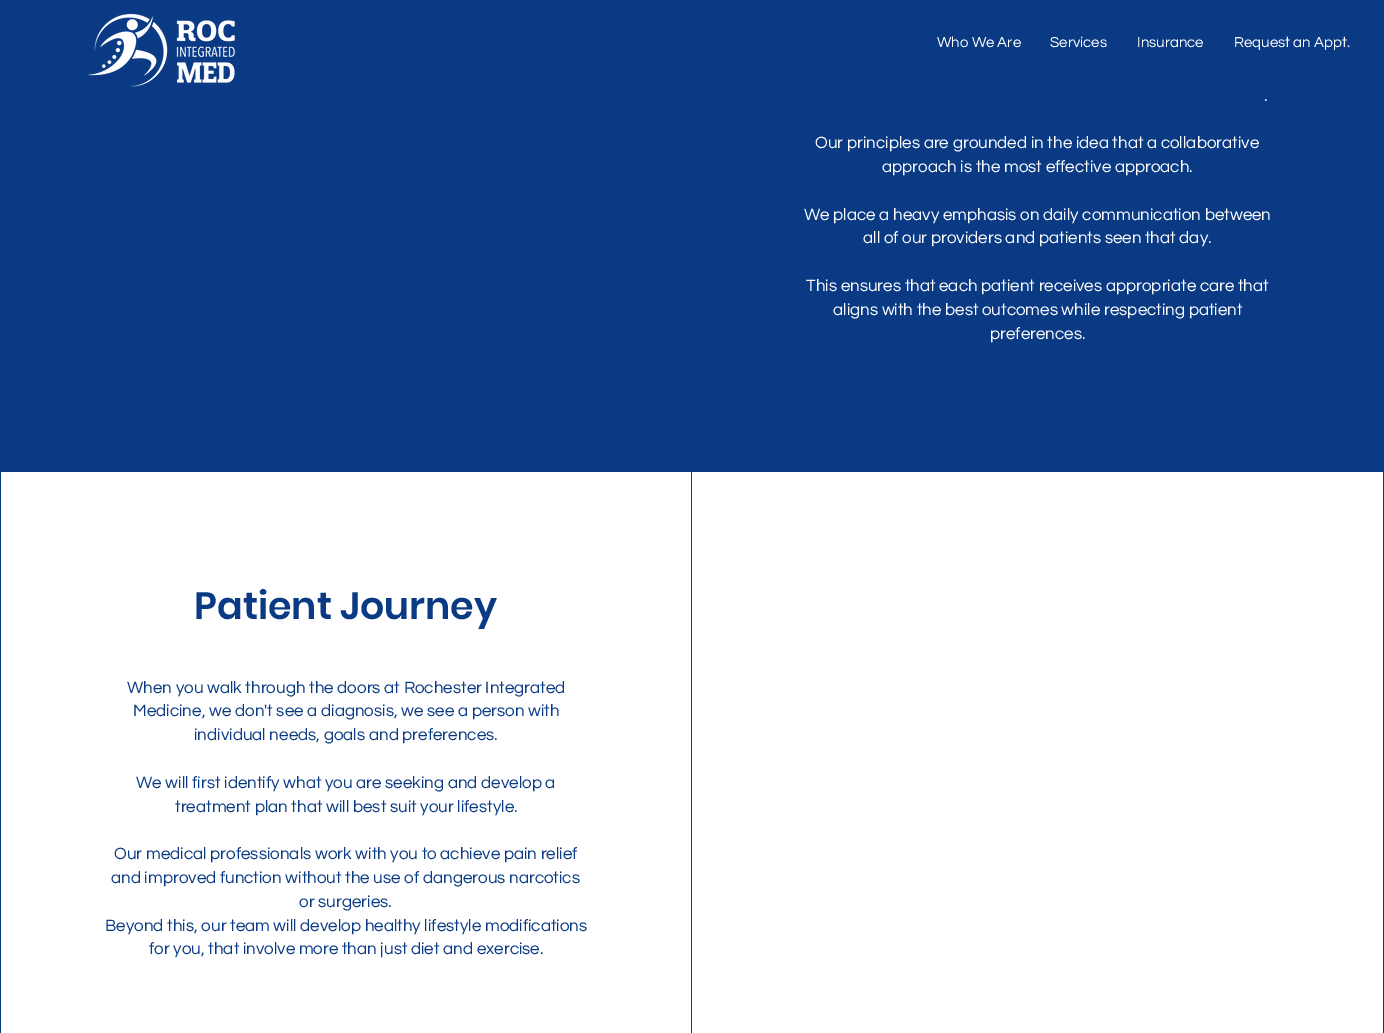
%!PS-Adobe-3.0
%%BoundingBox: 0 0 1384 1033
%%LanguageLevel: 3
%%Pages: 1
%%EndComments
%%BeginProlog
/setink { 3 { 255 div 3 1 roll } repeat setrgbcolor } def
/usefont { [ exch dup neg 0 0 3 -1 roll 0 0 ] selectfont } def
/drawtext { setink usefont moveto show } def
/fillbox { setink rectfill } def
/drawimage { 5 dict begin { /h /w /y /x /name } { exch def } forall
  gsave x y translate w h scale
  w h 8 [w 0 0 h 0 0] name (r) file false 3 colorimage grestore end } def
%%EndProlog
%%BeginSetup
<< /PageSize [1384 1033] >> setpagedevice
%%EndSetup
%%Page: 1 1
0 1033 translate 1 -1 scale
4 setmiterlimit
0 0 1384 1033 11 58 132 fillbox
(assets/img1.rgb) 87 13 148 74 drawimage
(Who We Are) 937 47 /Questrial-Regular 15 255 255 255 drawtext
(Services) 1050 47 /Questrial-Regular 15 255 255 255 drawtext
(Insurance) 1137 47 /Questrial-Regular 15 255 255 255 drawtext
(Request an Appt.) 1234 47 /Questrial-Regular 15 255 255 255 drawtext
(.) 1264 101 /Questrial-Regular 17 255 255 255 drawtext
(Our principles are grounded in the idea that a collaborative) 815 148 /Questrial-Regular 17 255 255 255 drawtext
(approach is the most effective approach.) 882 172 /Questrial-Regular 17 255 255 255 drawtext
(We place a heavy emphasis on daily communication between) 804 220 /Questrial-Regular 17 255 255 255 drawtext
(all of our providers and patients seen that day.) 863 243 /Questrial-Regular 17 255 255 255 drawtext
(This ensures that each patient receives appropriate care that) 806 291 /Questrial-Regular 17 255 255 255 drawtext
(aligns with the best outcomes while respecting patient) 833 315 /Questrial-Regular 17 255 255 255 drawtext
(preferences.) 990 339 /Questrial-Regular 17 255 255 255 drawtext
1 472 690 561 255 255 255 fillbox
(Patient Journey) 194 619 /Poppins-SemiBold 38 11 58 132 drawtext
(When you walk through the doors at Rochester Integrated) 127 693 /Questrial-Regular 17 11 58 132 drawtext
(Medicine, we don't see a diagnosis, we see a person with) 133 716 /Questrial-Regular 17 11 58 132 drawtext
(individual needs, goals and preferences.) 194 740 /Questrial-Regular 17 11 58 132 drawtext
(We will first identify what you are seeking and develop a) 136 788 /Questrial-Regular 17 11 58 132 drawtext
(treatment plan that will best suit your lifestyle.) 175 812 /Questrial-Regular 17 11 58 132 drawtext
(Our medical professionals work with you to achieve pain relief) 114 859 /Questrial-Regular 17 11 58 132 drawtext
(and improved function without the use of dangerous narcotics) 111 883 /Questrial-Regular 17 11 58 132 drawtext
(or surgeries.) 299 907 /Questrial-Regular 17 11 58 132 drawtext
(Beyond this, our team will develop healthy lifestyle modifications) 105 931 /Questrial-Regular 17 11 58 132 drawtext
(for you, that involve more than just diet and exercise.) 149 954 /Questrial-Regular 17 11 58 132 drawtext
692 472 691 561 255 255 255 fillbox
showpage
%%EOF
